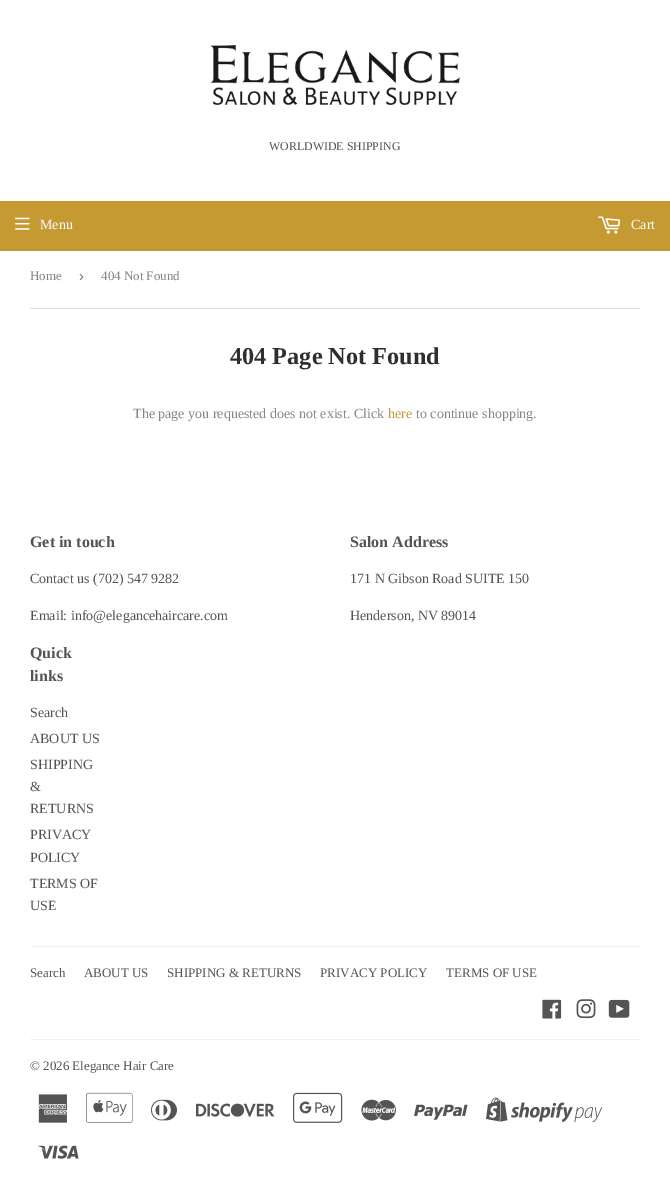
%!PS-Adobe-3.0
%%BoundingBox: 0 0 670 1193
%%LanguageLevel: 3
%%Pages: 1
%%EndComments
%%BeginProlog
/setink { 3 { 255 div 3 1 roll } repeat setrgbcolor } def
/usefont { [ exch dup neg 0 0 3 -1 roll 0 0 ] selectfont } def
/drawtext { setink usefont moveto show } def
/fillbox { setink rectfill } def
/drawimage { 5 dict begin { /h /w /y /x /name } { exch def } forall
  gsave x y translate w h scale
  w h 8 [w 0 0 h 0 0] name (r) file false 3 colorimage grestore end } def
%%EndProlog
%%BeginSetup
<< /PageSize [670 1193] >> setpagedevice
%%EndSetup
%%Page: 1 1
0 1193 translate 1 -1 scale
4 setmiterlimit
0 0 670 1193 255 255 255 fillbox
(assets/img1.rgb) 210 45 250 60 drawimage
(WORLDWIDE SHIPPING) 269 150 /LiberationSerif-Regular 11.9 84 84 84 drawtext
0 201 670 50 197 154 50 fillbox
(assets/img2.rgb) 15 217 15 13 drawimage
(Menu) 40 229 /LiberationSerif-Regular 14 255 255 255 drawtext
(assets/img3.rgb) 598 216 23 18 drawimage
(Cart) 631 229 /LiberationSerif-Regular 14 255 255 255 drawtext
30 308 610 1 222 222 222 fillbox
(Home) 30 280 /LiberationSerif-Regular 13 133 133 133 drawtext
(›) 79 281 /LiberationSans-Regular 15 118 118 118 drawtext
(404 Not Found) 101 280 /LiberationSerif-Regular 13 133 133 133 drawtext
(404 Page Not Found) 230 364 /LiberationSerif-Bold 24.25 47 47 47 drawtext
(The page you requested does not exist. Click) 133 418 /LiberationSerif-Regular 14 133 133 133 drawtext
(here) 388 418 /LiberationSerif-Regular 14 197 154 50 drawtext
(to continue shopping.) 416 418 /LiberationSerif-Regular 14 133 133 133 drawtext
(Get in touch) 30 547 /LiberationSerif-Bold 16 84 84 84 drawtext
(Contact us \(702\) 547 9282) 30 583 /LiberationSerif-Regular 14 84 84 84 drawtext
(Email: info@elegancehaircare.com) 30 620 /LiberationSerif-Regular 14 84 84 84 drawtext
(Salon Address) 350 547 /LiberationSerif-Bold 16 84 84 84 drawtext
(171 N Gibson Road SUITE 150) 350 583 /LiberationSerif-Regular 14 84 84 84 drawtext
(Henderson, NV 89014) 350 620 /LiberationSerif-Regular 14 84 84 84 drawtext
(Quick) 30 658 /LiberationSerif-Bold 16 84 84 84 drawtext
(links) 30 681 /LiberationSerif-Bold 16 84 84 84 drawtext
(Search) 30 717 /LiberationSerif-Regular 14 84 84 84 drawtext
(ABOUT US) 30 743 /LiberationSerif-Regular 14 84 84 84 drawtext
(SHIPPING) 30 769 /LiberationSerif-Regular 14 84 84 84 drawtext
(&) 30 791 /LiberationSerif-Regular 14 84 84 84 drawtext
(RETURNS) 30 813 /LiberationSerif-Regular 14 84 84 84 drawtext
(PRIVACY) 30 839 /LiberationSerif-Regular 14 84 84 84 drawtext
(POLICY) 30 862 /LiberationSerif-Regular 14 84 84 84 drawtext
(TERMS OF) 30 888 /LiberationSerif-Regular 14 84 84 84 drawtext
(USE) 30 910 /LiberationSerif-Regular 14 84 84 84 drawtext
30 946 610 1 242 242 242 fillbox
(Search) 30 977 /LiberationSerif-Regular 13 84 84 84 drawtext
(ABOUT US) 84 977 /LiberationSerif-Regular 13 84 84 84 drawtext
(SHIPPING & RETURNS) 167 977 /LiberationSerif-Regular 13 84 84 84 drawtext
(PRIVACY POLICY) 320 977 /LiberationSerif-Regular 13 84 84 84 drawtext
(TERMS OF USE) 446 977 /LiberationSerif-Regular 13 84 84 84 drawtext
(assets/img4.rgb) 542 999 20 20 drawimage
(assets/img5.rgb) 576 999 20 20 drawimage
(assets/img6.rgb) 608 999 22 19 drawimage
30 1039 610 1 242 242 242 fillbox
(© 2026 Elegance Hair Care) 30 1070 /LiberationSerif-Regular 13 84 84 84 drawtext
(assets/img7.rgb) 38 1094 30 29 drawimage
(assets/img8.rgb) 86 1092 47 31 drawimage
(assets/img9.rgb) 151 1099 26 22 drawimage
(assets/img10.rgb) 196 1103 79 14 drawimage
(assets/img11.rgb) 293 1092 50 31 drawimage
(assets/img12.rgb) 361 1099 35 22 drawimage
(assets/img13.rgb) 414 1104 54 16 drawimage
(assets/img14.rgb) 486 1097 117 26 drawimage
(assets/img15.rgb) 38 1145 41 14 drawimage
showpage
%%EOF
